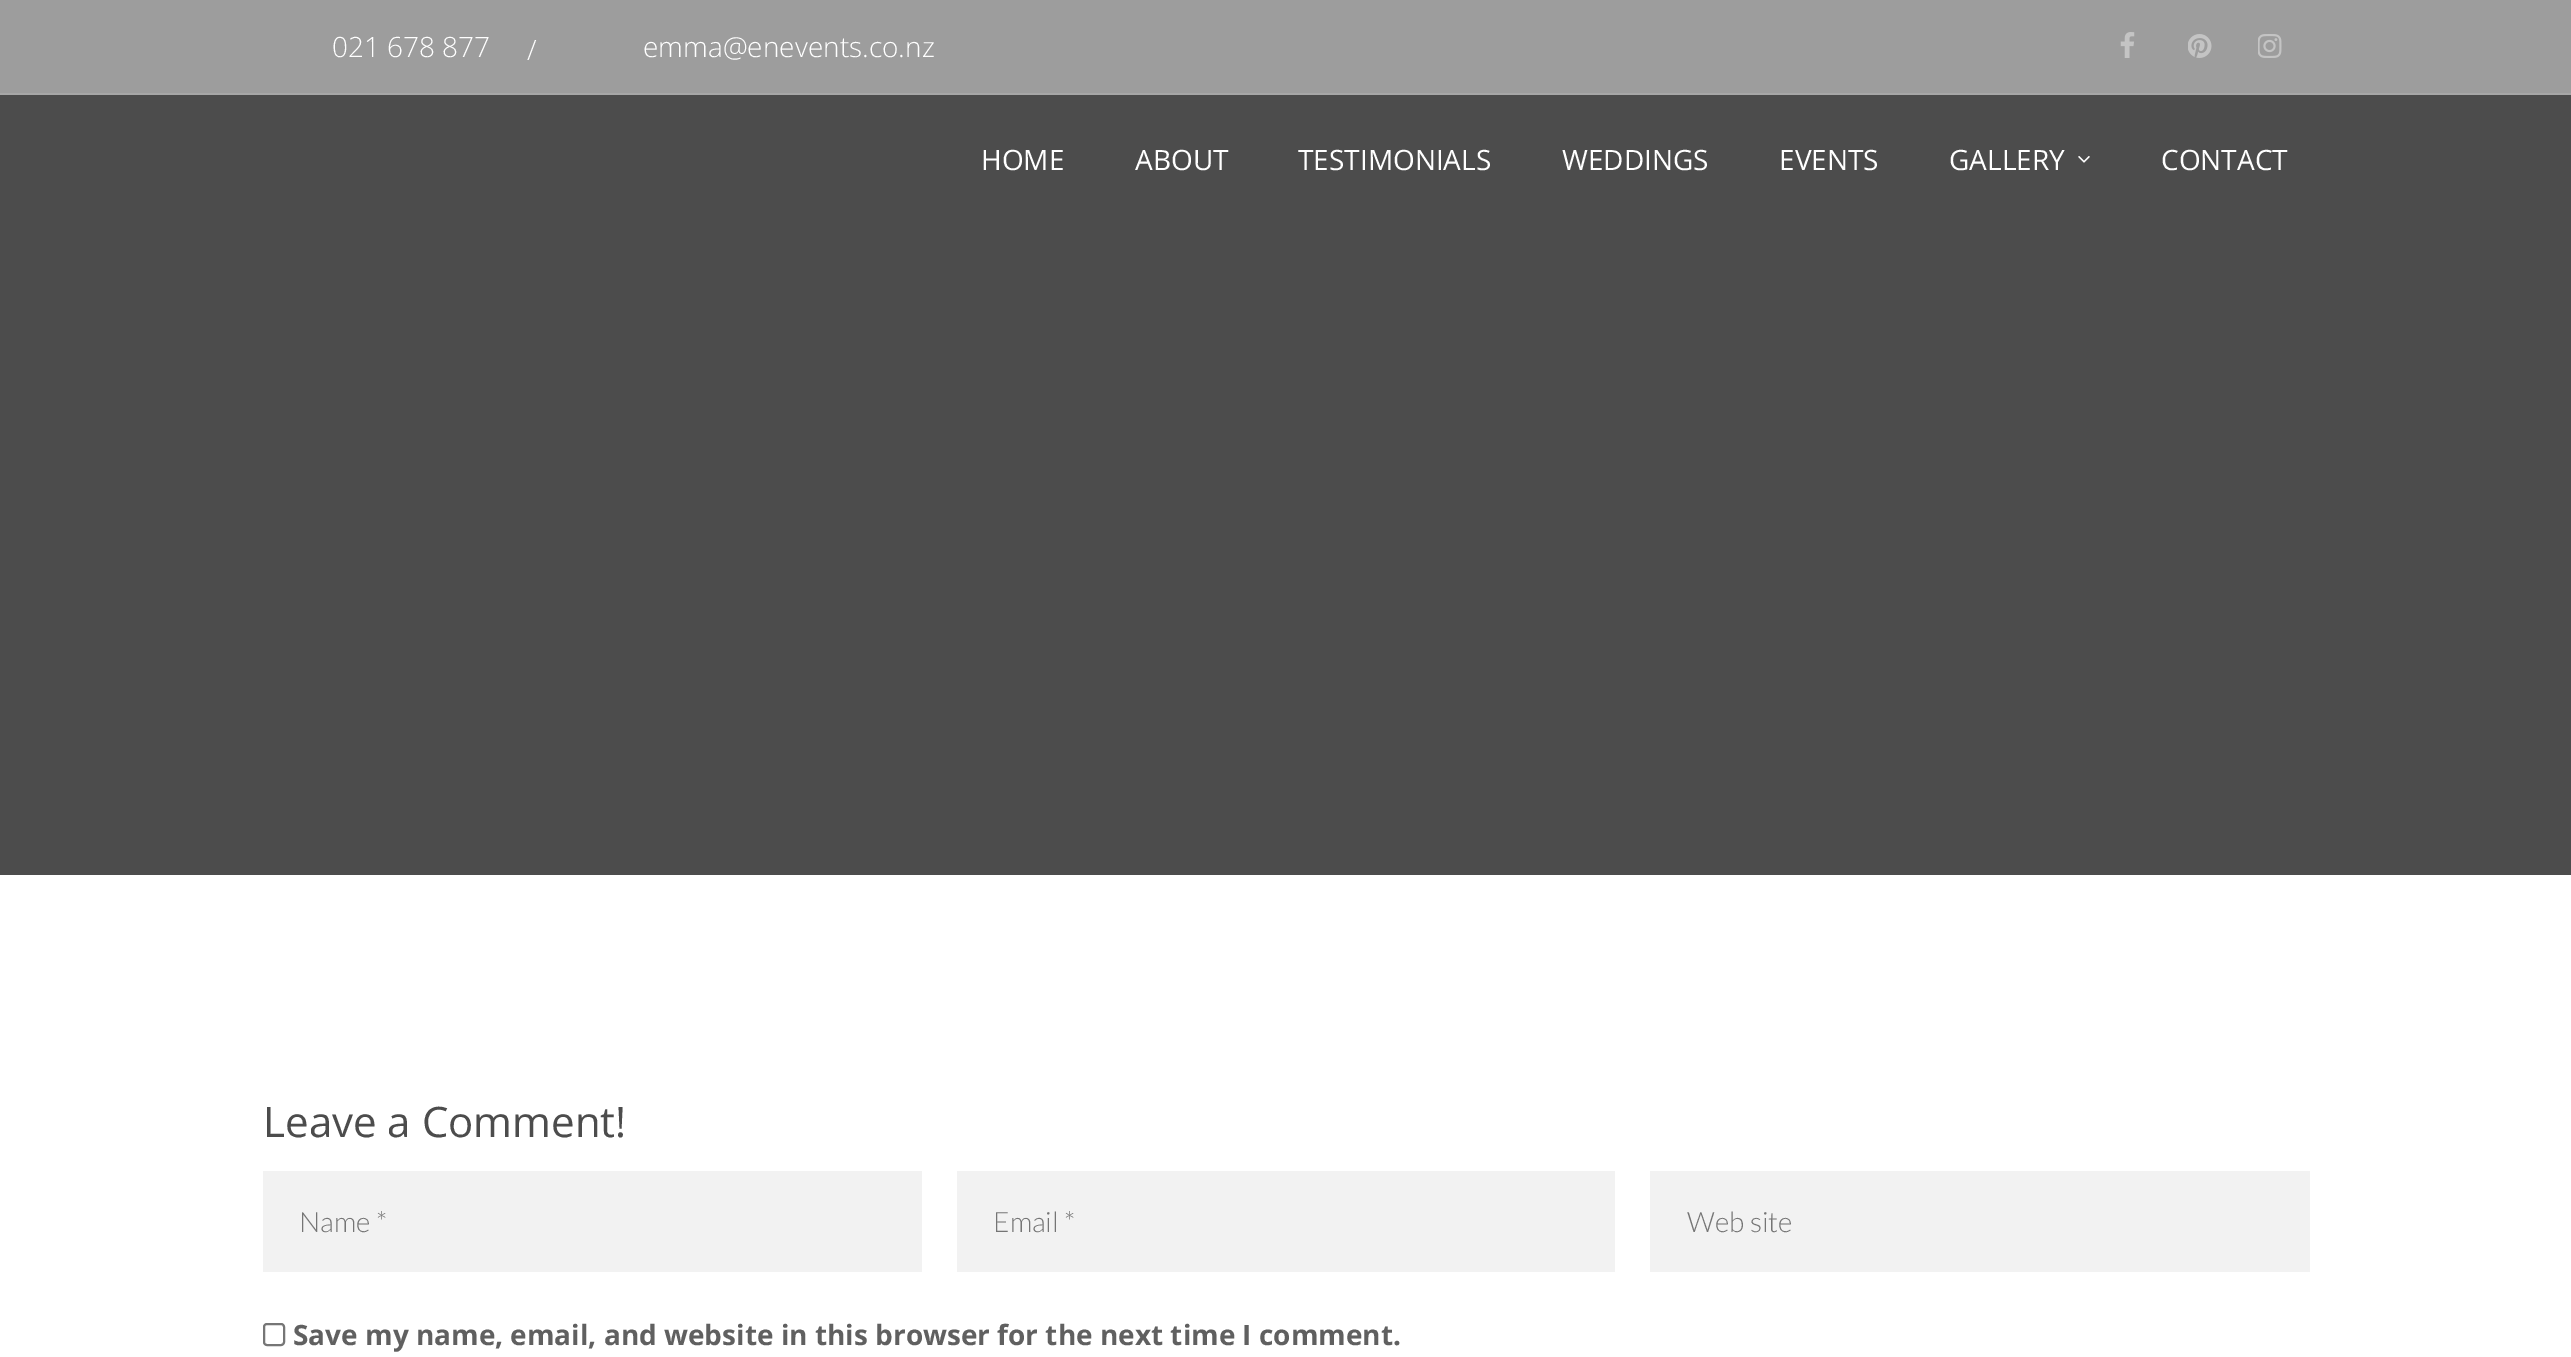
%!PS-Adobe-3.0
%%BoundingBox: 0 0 2571 1357
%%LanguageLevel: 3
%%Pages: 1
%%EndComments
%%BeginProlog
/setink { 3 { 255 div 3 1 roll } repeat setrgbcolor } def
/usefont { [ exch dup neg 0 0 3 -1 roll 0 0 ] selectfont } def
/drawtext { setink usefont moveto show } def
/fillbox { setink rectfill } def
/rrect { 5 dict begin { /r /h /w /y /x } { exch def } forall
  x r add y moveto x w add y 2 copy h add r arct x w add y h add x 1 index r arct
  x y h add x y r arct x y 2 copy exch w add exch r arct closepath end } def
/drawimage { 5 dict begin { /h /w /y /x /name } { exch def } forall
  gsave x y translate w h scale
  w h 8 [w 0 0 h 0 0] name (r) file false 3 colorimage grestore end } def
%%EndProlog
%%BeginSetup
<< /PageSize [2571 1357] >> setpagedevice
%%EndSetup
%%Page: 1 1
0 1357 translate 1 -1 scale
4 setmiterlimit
0 0 2571 1357 255 255 255 fillbox
0 0 2571 93 157 157 157 fillbox
(021 678 877) 332 57 /OpenSans-Light 28 255 255 255 drawtext
(/) 527 60 /OpenSans-Light 28 255 255 255 drawtext
(emma@enevents.co.nz) 643 57 /OpenSans-Light 28 255 255 255 drawtext
(assets/img1.rgb) 2120 32 15 26 drawimage
(assets/img2.rgb) 2188 34 24 24 drawimage
(assets/img3.rgb) 2258 34 24 24 drawimage
0 93 2571 2 167 167 167 fillbox
0 95 2571 780 76 76 76 fillbox
(HOME) 981 170 /OpenSans-Regular 28 255 255 255 drawtext
(ABOUT) 1135 170 /OpenSans-Regular 28 255 255 255 drawtext
(TESTIMONIALS) 1298 170 /OpenSans-Regular 28 255 255 255 drawtext
(WEDDINGS) 1562 170 /OpenSans-Regular 28 255 255 255 drawtext
(EVENTS) 1779 170 /OpenSans-Regular 28 255 255 255 drawtext
(GALLERY) 1949 170 /OpenSans-Regular 28 255 255 255 drawtext
(assets/img4.rgb) 2078 156 12 7 drawimage
(CONTACT) 2161 170 /OpenSans-Regular 28 255 255 255 drawtext
(Leave a Comment!) 263 1137 /OpenSans-Regular 42 76 76 76 drawtext
263 1171 659 101 242 242 242 fillbox
(Name *) 299 1232 /Lato-Light 28 117 117 117 drawtext
957 1171 658 101 242 242 242 fillbox
(Email *) 993 1232 /Lato-Light 28 117 117 117 drawtext
1650 1171 660 101 242 242 242 fillbox
(Web site) 1687 1232 /Lato-Light 28 117 117 117 drawtext
118 118 118 setink
2 setlinewidth
264 1324 20 21 3 rrect stroke
(Save my name, email, and website in this browser for the next time I comment.) 293 1345 /OpenSans-Bold 28 96 96 96 drawtext
showpage
%%EOF
